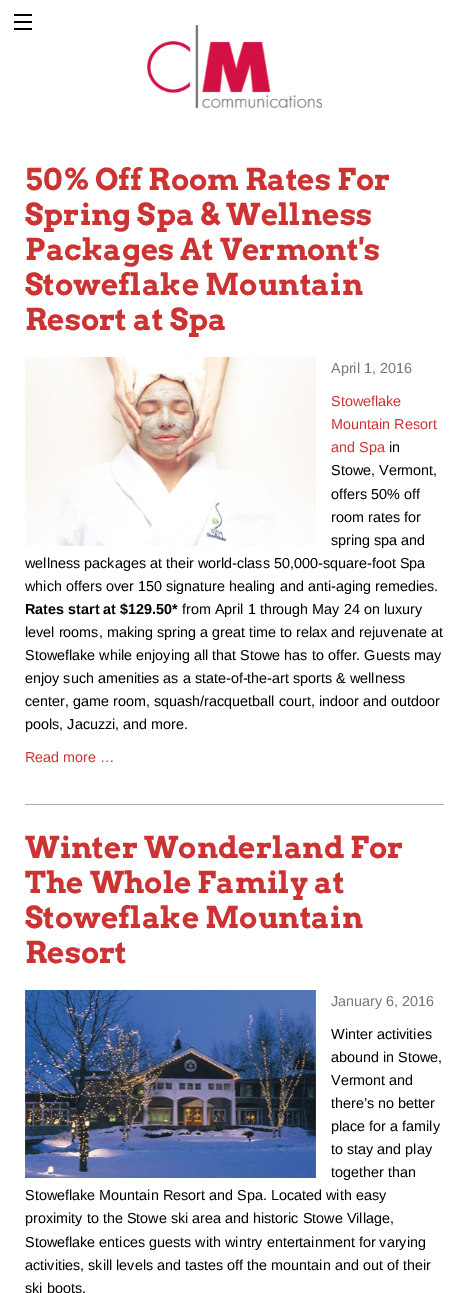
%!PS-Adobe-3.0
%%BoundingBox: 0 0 469 1293
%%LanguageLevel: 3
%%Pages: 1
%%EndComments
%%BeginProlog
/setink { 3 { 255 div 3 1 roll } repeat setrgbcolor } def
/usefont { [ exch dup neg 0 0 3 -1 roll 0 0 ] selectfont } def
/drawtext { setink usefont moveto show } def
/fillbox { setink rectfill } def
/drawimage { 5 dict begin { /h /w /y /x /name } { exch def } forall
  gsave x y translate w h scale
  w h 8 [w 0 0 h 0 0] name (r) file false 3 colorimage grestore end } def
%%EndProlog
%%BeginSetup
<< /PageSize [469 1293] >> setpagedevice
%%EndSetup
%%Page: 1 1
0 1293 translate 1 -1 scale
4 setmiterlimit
0 0 469 1293 255 255 255 fillbox
14 28 18 2 0 0 0 fillbox
14 21 18 2 0 0 0 fillbox
14 14 18 2 0 0 0 fillbox
(assets/img1.rgb) 147 25 175 83 drawimage
25 804 419 1 170 170 170 fillbox
(50% Off Room Rates For) 25 190 /Arvo-Bold 30 204 51 51 drawtext
(Spring Spa & Wellness) 25 225 /Arvo-Bold 30 204 51 51 drawtext
(Packages At Vermont's) 25 260 /Arvo-Bold 30 204 51 51 drawtext
(Stoweflake Mountain) 25 295 /Arvo-Bold 30 204 51 51 drawtext
(Resort at Spa) 25 330 /Arvo-Bold 30 204 51 51 drawtext
(assets/img2.rgb) 25 357 291 189 drawimage
(April 1, 2016) 331 373 /LiberationSans-Regular 14.4 120 120 120 drawtext
(Stoweflake) 331 406 /LiberationSans-Regular 14.4 204 51 51 drawtext
(Mountain Resort) 331 429 /LiberationSans-Regular 14.4 204 51 51 drawtext
(and Spa) 331 452 /LiberationSans-Regular 14.4 204 51 51 drawtext
(in) 389 452 /LiberationSans-Regular 14.4 0 0 0 drawtext
(Stowe, Vermont,) 331 475 /LiberationSans-Regular 14.4 0 0 0 drawtext
(offers 50% off) 331 499 /LiberationSans-Regular 14.4 0 0 0 drawtext
(room rates for) 331 522 /LiberationSans-Regular 14.4 0 0 0 drawtext
(spring spa and) 331 545 /LiberationSans-Regular 14.4 0 0 0 drawtext
(wellness packages at their world-class 50,000-square-foot Spa) 25 568 /LiberationSans-Regular 14.4 0 0 0 drawtext
(which offers over 150 signature healing and anti-aging remedies.) 25 591 /LiberationSans-Regular 14.4 0 0 0 drawtext
(Rates start at $129.50*) 25 614 /LiberationSans-Bold 14.4 0 0 0 drawtext
(from April 1 through May 24 on luxury) 182 614 /LiberationSans-Regular 14.4 0 0 0 drawtext
(level rooms, making spring a great time to relax and rejuvenate at) 25 637 /LiberationSans-Regular 14.4 0 0 0 drawtext
(Stoweflake while enjoying all that Stowe has to offer. Guests may) 25 660 /LiberationSans-Regular 14.4 0 0 0 drawtext
(enjoy such amenities as a state-of-the-art sports & wellness) 25 683 /LiberationSans-Regular 14.4 0 0 0 drawtext
(center, game room, squash/racquetball court, indoor and outdoor) 25 706 /LiberationSans-Regular 14.4 0 0 0 drawtext
(pools, Jacuzzi, and more.) 25 729 /LiberationSans-Regular 14.4 0 0 0 drawtext
(Read more …) 25 762 /LiberationSans-Regular 14.4 204 51 51 drawtext
(Winter Wonderland For) 25 858 /Arvo-Bold 30 204 51 51 drawtext
(The Whole Family at) 25 893 /Arvo-Bold 30 204 51 51 drawtext
(Stoweflake Mountain) 25 928 /Arvo-Bold 30 204 51 51 drawtext
(Resort) 25 963 /Arvo-Bold 30 204 51 51 drawtext
(assets/img3.rgb) 25 990 291 188 drawimage
(January 6, 2016) 331 1006 /LiberationSans-Regular 14.4 120 120 120 drawtext
(Winter activities) 331 1039 /LiberationSans-Regular 14.4 0 0 0 drawtext
(abound in Stowe,) 331 1062 /LiberationSans-Regular 14.4 0 0 0 drawtext
(Vermont and) 331 1085 /LiberationSans-Regular 14.4 0 0 0 drawtext
(there’s no better) 331 1108 /LiberationSans-Regular 14.4 0 0 0 drawtext
(place for a family) 331 1131 /LiberationSans-Regular 14.4 0 0 0 drawtext
(to stay and play) 331 1154 /LiberationSans-Regular 14.4 0 0 0 drawtext
(together than) 331 1177 /LiberationSans-Regular 14.4 0 0 0 drawtext
(Stoweflake Mountain Resort and Spa. Located with easy) 25 1200 /LiberationSans-Regular 14.4 0 0 0 drawtext
(proximity to the Stowe ski area and historic Stowe Village,) 25 1223 /LiberationSans-Regular 14.4 0 0 0 drawtext
(Stoweflake entices guests with wintry entertainment for varying) 25 1247 /LiberationSans-Regular 14.4 0 0 0 drawtext
(activities, skill levels and tastes off the mountain and out of their) 25 1270 /LiberationSans-Regular 14.4 0 0 0 drawtext
(ski boots.) 25 1293 /LiberationSans-Regular 14.4 0 0 0 drawtext
showpage
%%EOF
